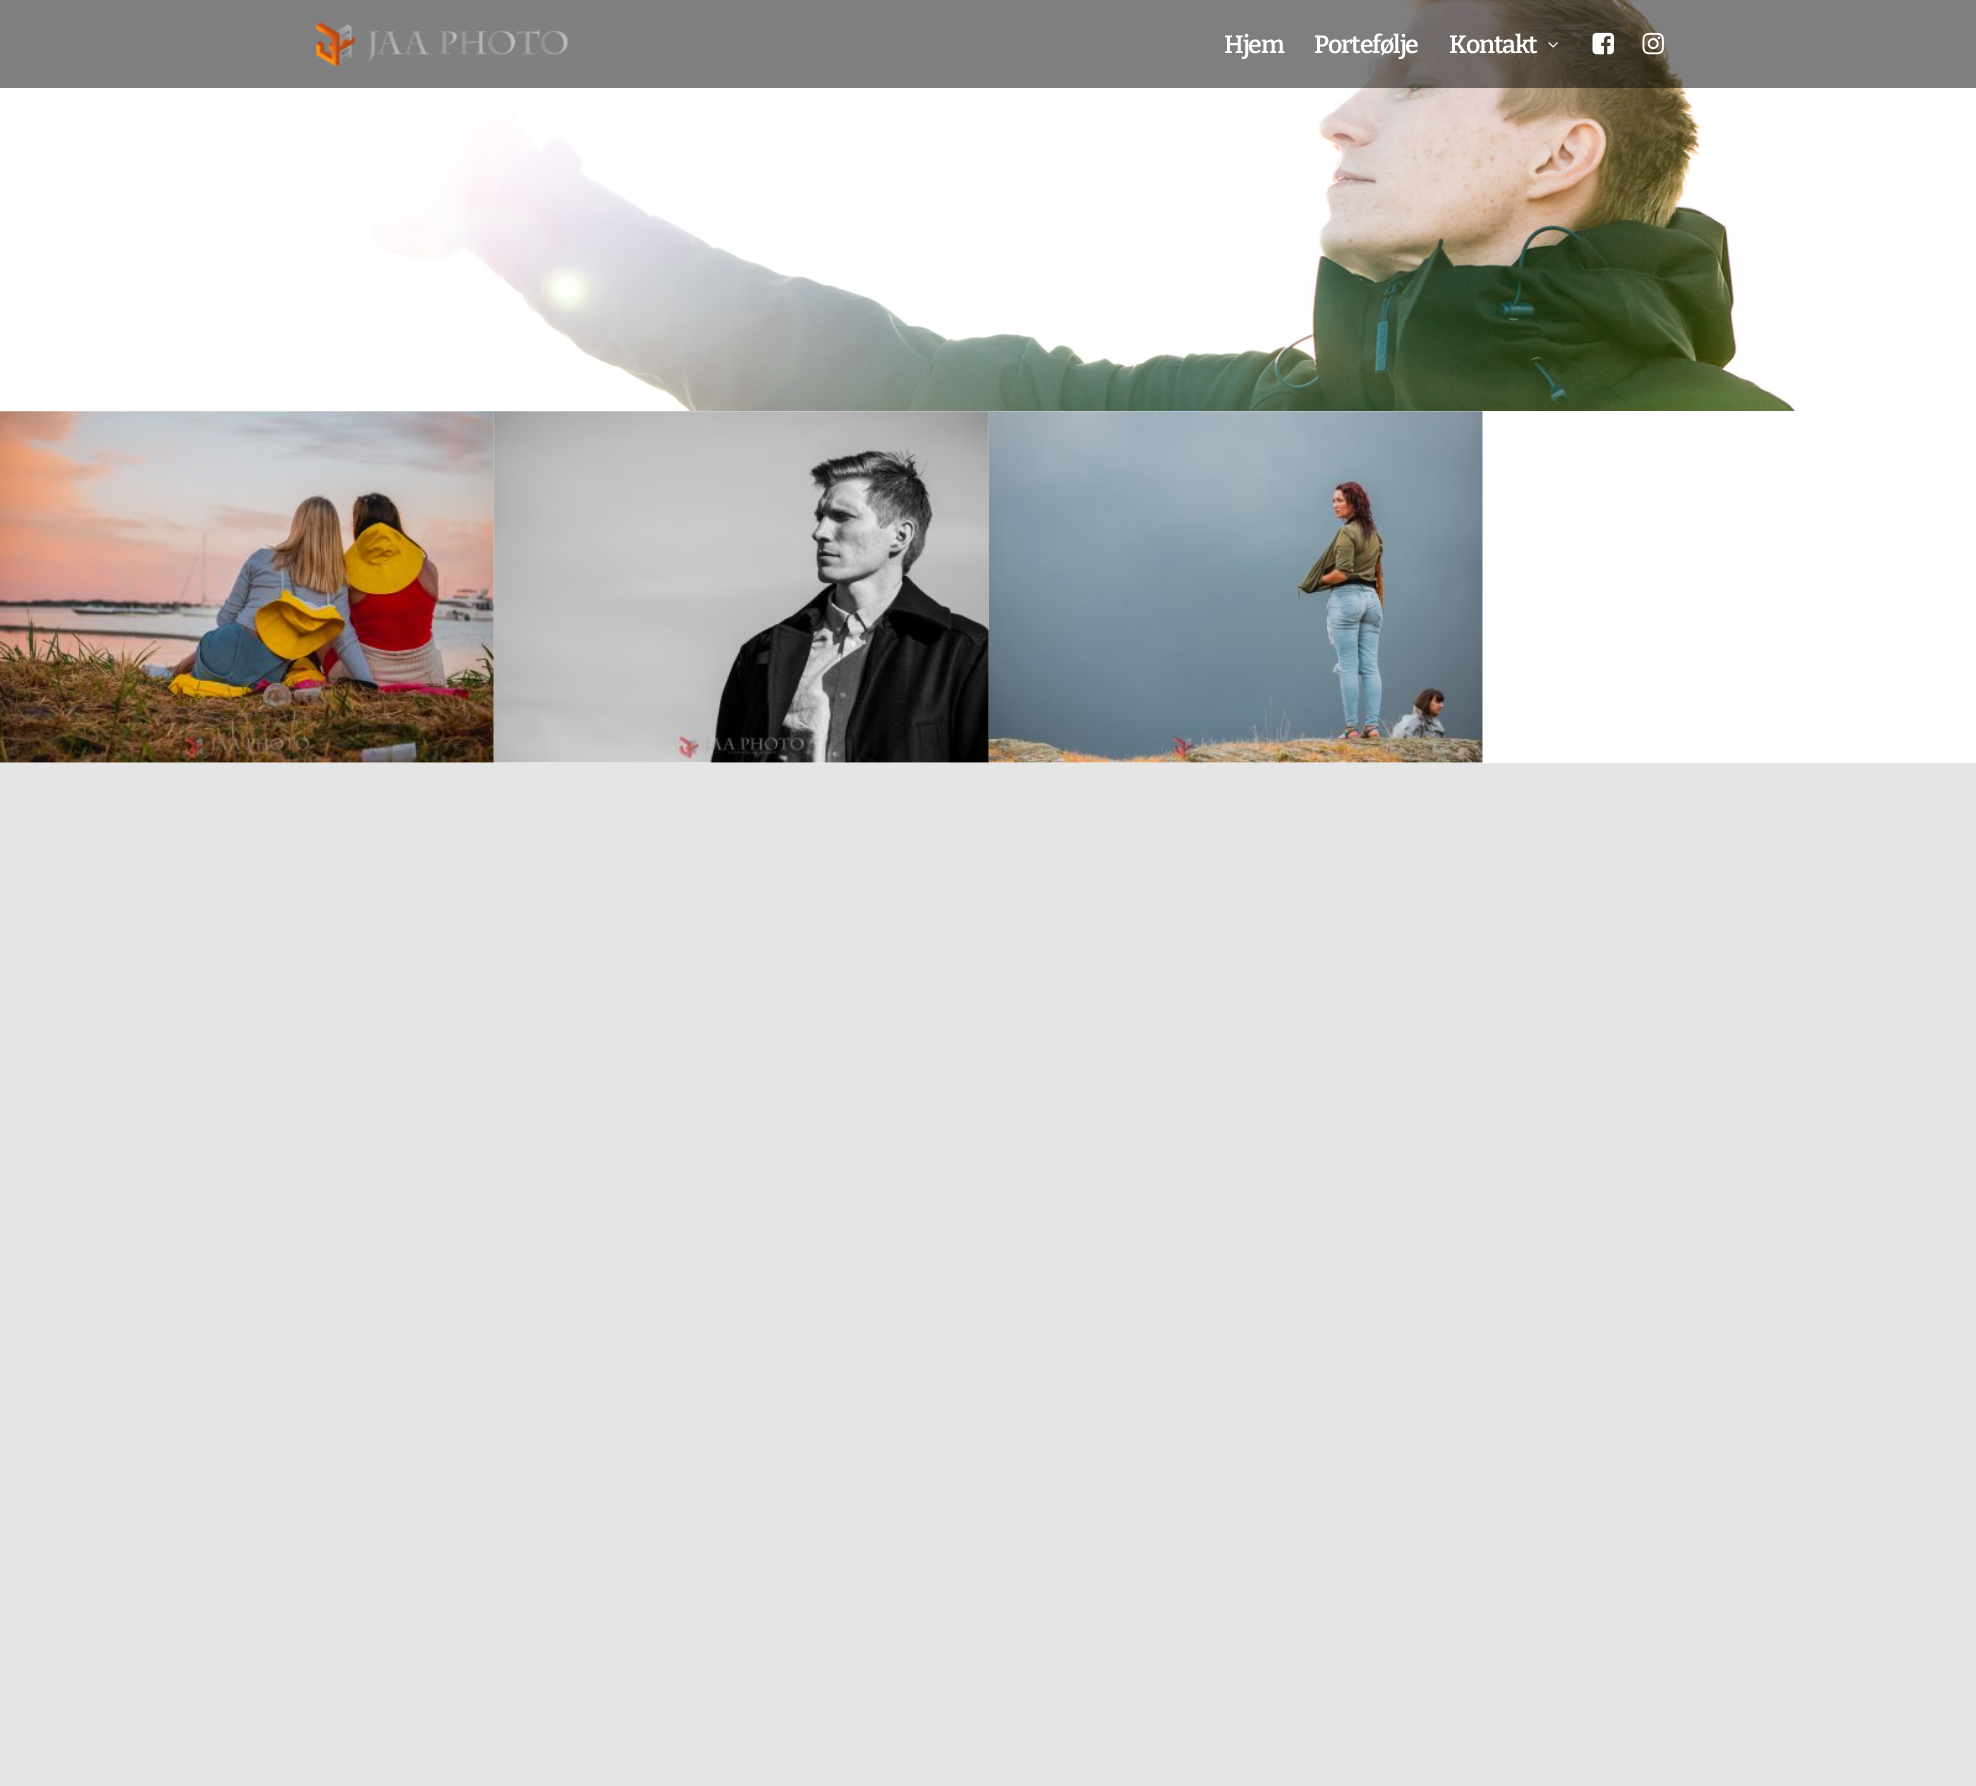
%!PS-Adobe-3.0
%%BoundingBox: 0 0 1976 1786
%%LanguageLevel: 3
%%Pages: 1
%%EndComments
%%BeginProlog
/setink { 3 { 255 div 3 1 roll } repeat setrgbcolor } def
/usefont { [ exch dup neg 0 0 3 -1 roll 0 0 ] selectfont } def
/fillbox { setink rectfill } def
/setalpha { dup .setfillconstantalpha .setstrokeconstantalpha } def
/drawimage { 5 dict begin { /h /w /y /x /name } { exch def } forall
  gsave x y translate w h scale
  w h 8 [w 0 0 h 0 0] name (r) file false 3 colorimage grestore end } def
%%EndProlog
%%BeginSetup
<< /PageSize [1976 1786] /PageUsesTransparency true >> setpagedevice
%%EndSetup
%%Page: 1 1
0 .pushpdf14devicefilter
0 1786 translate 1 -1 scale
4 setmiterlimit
0 0 1976 1786 229 229 229 fillbox
0 0 1976 763 255 255 255 fillbox
(assets/img1.rgb) 372 0 1424 411 drawimage
(assets/img2.rgb) 0 411 494 352 drawimage
(assets/img3.rgb) 493 411 496 352 drawimage
(assets/img4.rgb) 988 411 495 352 drawimage
0.5 setalpha
0 0 1976 88 0 0 0 fillbox
1 setalpha
(assets/img5.rgb) 316 22 253 45 drawimage
/Bitter-SemiBold 25 usefont
255 255 255 setink
1224 53 moveto -1.25 0 (Hjem) ashow
1314 53 moveto -1.25 0 (Portefølje) ashow
1449 53 moveto -1.25 0 (Kontakt) ashow
(assets/img6.rgb) 1548 42 10 6 drawimage
(assets/img7.rgb) 1592 32 22 23 drawimage
(assets/img8.rgb) 1642 32 22 23 drawimage
.poppdf14devicefilter showpage
%%EOF
